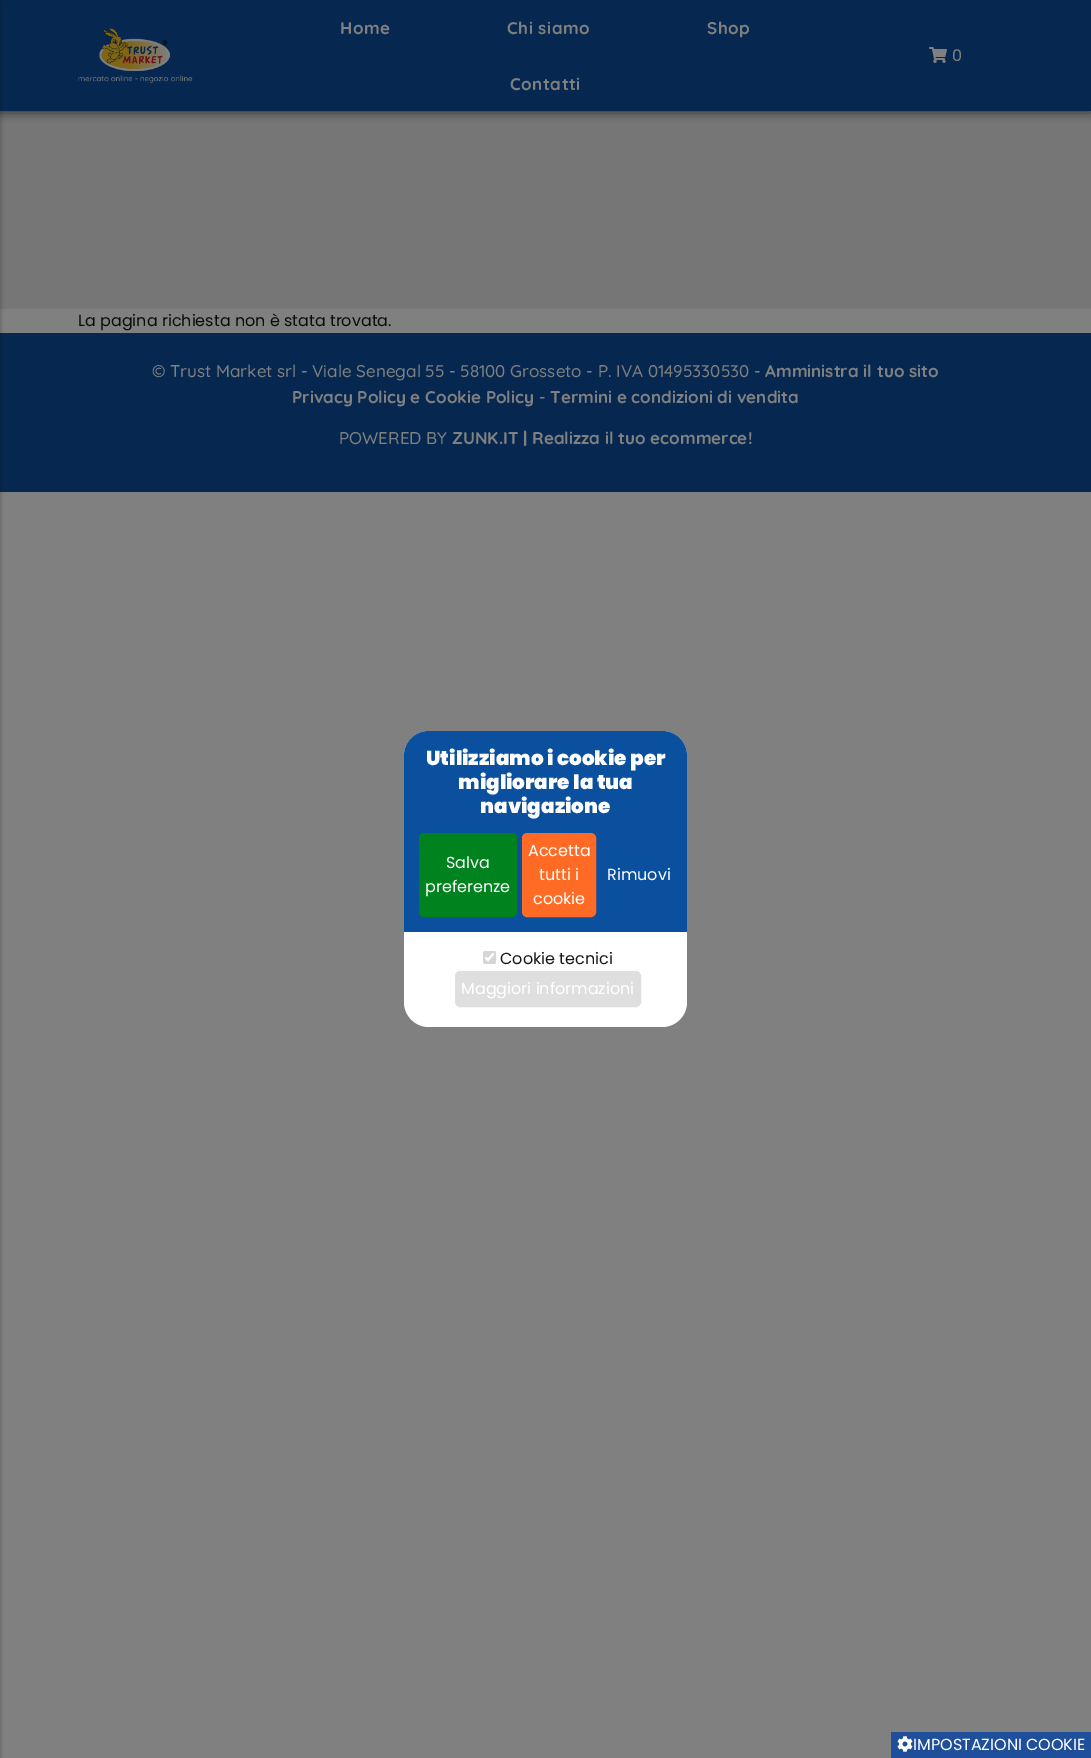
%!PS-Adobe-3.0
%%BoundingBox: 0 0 1091 1758
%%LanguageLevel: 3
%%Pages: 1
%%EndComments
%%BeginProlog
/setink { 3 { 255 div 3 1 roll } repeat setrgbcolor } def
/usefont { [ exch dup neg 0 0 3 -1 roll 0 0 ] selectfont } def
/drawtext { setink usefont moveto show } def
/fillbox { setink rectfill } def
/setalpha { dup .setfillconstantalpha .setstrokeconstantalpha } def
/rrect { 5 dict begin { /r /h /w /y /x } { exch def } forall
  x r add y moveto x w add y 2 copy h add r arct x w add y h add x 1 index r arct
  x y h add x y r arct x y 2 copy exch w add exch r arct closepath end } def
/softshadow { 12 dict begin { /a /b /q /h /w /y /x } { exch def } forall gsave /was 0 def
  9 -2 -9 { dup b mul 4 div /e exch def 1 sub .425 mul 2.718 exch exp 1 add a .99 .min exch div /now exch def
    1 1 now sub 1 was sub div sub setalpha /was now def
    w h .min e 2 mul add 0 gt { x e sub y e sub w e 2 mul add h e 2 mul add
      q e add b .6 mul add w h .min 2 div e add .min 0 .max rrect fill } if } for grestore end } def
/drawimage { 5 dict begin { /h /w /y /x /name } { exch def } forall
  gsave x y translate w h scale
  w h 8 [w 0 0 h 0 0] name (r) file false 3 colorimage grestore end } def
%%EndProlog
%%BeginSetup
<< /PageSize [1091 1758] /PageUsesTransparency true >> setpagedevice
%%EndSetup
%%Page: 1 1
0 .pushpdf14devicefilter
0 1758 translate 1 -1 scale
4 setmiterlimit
0 0 1091 1758 128 128 128 fillbox
0 111 1091 198 118 118 118 fillbox
12 12 12 setink
0 -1 1091 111 0 6 1 softshadow
0 0 1091 111 6 40 80 fillbox
0 333 1091 159 6 40 80 fillbox
0 0 0 setink
-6 3 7 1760 0 2 0.2 softshadow
(assets/img1.rgb) 78 28 115 55 drawimage
/Quicksand-Bold 17 usefont
128 128 128 setink
340 34 moveto 0.5 0 (Home) ashow
507 34 moveto 0.5 0 (Chi siamo) ashow
707 34 moveto 0.5 0 (Shop) ashow
510 90 moveto 0.5 0 (Contatti) ashow
(assets/img2.rgb) 929 47 18 16 drawimage
(0) 952 61 /Poppins-Regular 16 128 128 128 drawtext
(La pagina richiesta non è stata trovata.) 78 326 /Poppins-Regular 16 12 12 12 drawtext
(© Trust Market srl - Viale Senegal 55 - 58100 Grosseto - P. IVA 01495330530 -) 152 377 /Quicksand-Medium 17 128 128 128 drawtext
(Amministra il tuo sito) 765 377 /Quicksand-Bold 17 128 128 128 drawtext
(Privacy Policy e Cookie Policy) 292 403 /Quicksand-Bold 17 128 128 128 drawtext
(-) 539 403 /Quicksand-Medium 17 128 128 128 drawtext
(Termini e condizioni di vendita) 550 403 /Quicksand-Bold 17 128 128 128 drawtext
(POWERED BY) 339 444 /Quicksand-Medium 17 128 128 128 drawtext
(ZUNK.IT | Realizza il tuo ecommerce!) 452 444 /Quicksand-Bold 17 128 128 128 drawtext
255 255 255 setink
404 731 283 296 25 rrect fill
11 79 159 setink
429 731 moveto 662 731 lineto 676 731 687 742 687 756 curveto 687 932 lineto 404 932 lineto 404 756 lineto 404 742 415 731 429 731 curveto closepath fill
(Utilizziamo i cookie per) 426 765 /Poppins-Black 20 255 255 255 drawtext
(migliorare la tua) 458 789 /Poppins-Black 20 255 255 255 drawtext
(navigazione) 480 813 /Poppins-Black 20 255 255 255 drawtext
0 130 30 setink
419.5 833.5 97 83 4.5 rrect gsave fill grestore
stroke
(Salva) 446 868 /Poppins-Regular 16 255 255 255 drawtext
(preferenze) 425 892 /Poppins-Regular 16 255 255 255 drawtext
255 106 36 setink
522.5 833.5 73 83 4.5 rrect gsave fill grestore
stroke
(Accetta) 528 856 /Poppins-Regular 16 255 255 255 drawtext
(tutti i) 539 880 /Poppins-Regular 16 255 255 255 drawtext
(cookie) 533 904 /Poppins-Regular 16 255 255 255 drawtext
(Rimuovi) 607 880 /Poppins-Regular 16 255 255 255 drawtext
214 214 214 setink
483 951 13 13 2 rrect fill
255 255 255 setink
2.1 setlinewidth
485.5 957.5 moveto 488 960 lineto 493.5 953.5 lineto stroke
(Cookie tecnici) 500 964 /Poppins-Regular 16 24 24 24 drawtext
223 223 223 setink
455.5 971.5 185 35 4.5 rrect gsave fill grestore
1 setlinewidth
stroke
(Maggiori informazioni) 461 994 /Poppins-Regular 16 255 255 255 drawtext
891 1732 200 26 31 78 155 fillbox
(assets/img3.rgb) 897 1736 16 16 drawimage
(IMPOSTAZIONI COOKIE) 913 1750 /Poppins-Regular 16 255 255 255 drawtext
.poppdf14devicefilter showpage
%%EOF
